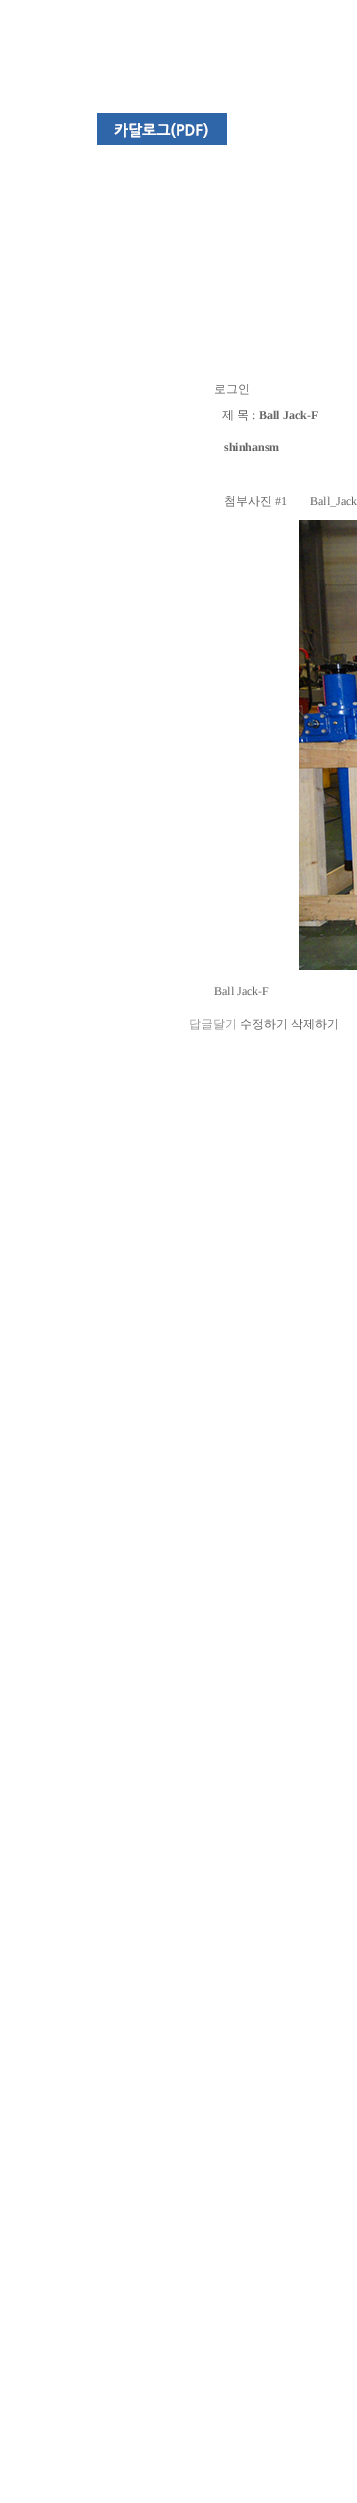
%!PS-Adobe-3.0
%%BoundingBox: 0 0 357 2503
%%LanguageLevel: 3
%%Pages: 1
%%EndComments
%%BeginProlog
/setink { 3 { 255 div 3 1 roll } repeat setrgbcolor } def
/usefont { [ exch dup neg 0 0 3 -1 roll 0 0 ] selectfont } def
/drawtext { setink usefont moveto show } def
/fillbox { setink rectfill } def
/drawimage { 5 dict begin { /h /w /y /x /name } { exch def } forall
  gsave x y translate w h scale
  w h 8 [w 0 0 h 0 0] name (r) file false 3 colorimage grestore end } def
%%EndProlog
%%BeginSetup
<< /PageSize [357 2503] >> setpagedevice
%%EndSetup
%%Page: 1 1
0 2503 translate 1 -1 scale
4 setmiterlimit
0 0 357 2503 255 255 255 fillbox
(assets/img1.rgb) 97 113 130 32 drawimage
(로그인) 214 393 /WenQuanYiZenHei-Medium 12 102 102 102 drawtext
(제) 222 419 /WenQuanYiZenHei-Medium 12 102 102 102 drawtext
(목) 237 419 /WenQuanYiZenHei-Medium 12 102 102 102 drawtext
(:) 252 419 /LiberationSerif-Regular 12 102 102 102 drawtext
(Ball Jack-F) 259 419 /LiberationSerif-Bold 12 102 102 102 drawtext
(shinhansm) 224 451 /LiberationSerif-Bold 12 102 102 102 drawtext
(첨부사진) 224 505 /WenQuanYiZenHei-Medium 12 102 102 102 drawtext
(#1) 275 505 /LiberationSerif-Regular 12 102 102 102 drawtext
(Ball_Jack) 310 505 /LiberationSerif-Regular 12 102 102 102 drawtext
(assets/img2.rgb) 299 520 58 450 drawimage
(Ball Jack-F) 214 995 /LiberationSerif-Regular 12 102 102 102 drawtext
(답글달기) 189 1028 /WenQuanYiZenHei-Medium 12 153 153 153 drawtext
(수정하기) 240 1028 /WenQuanYiZenHei-Medium 12 102 102 102 drawtext
(삭제하기) 291 1028 /WenQuanYiZenHei-Medium 12 102 102 102 drawtext
showpage
%%EOF
